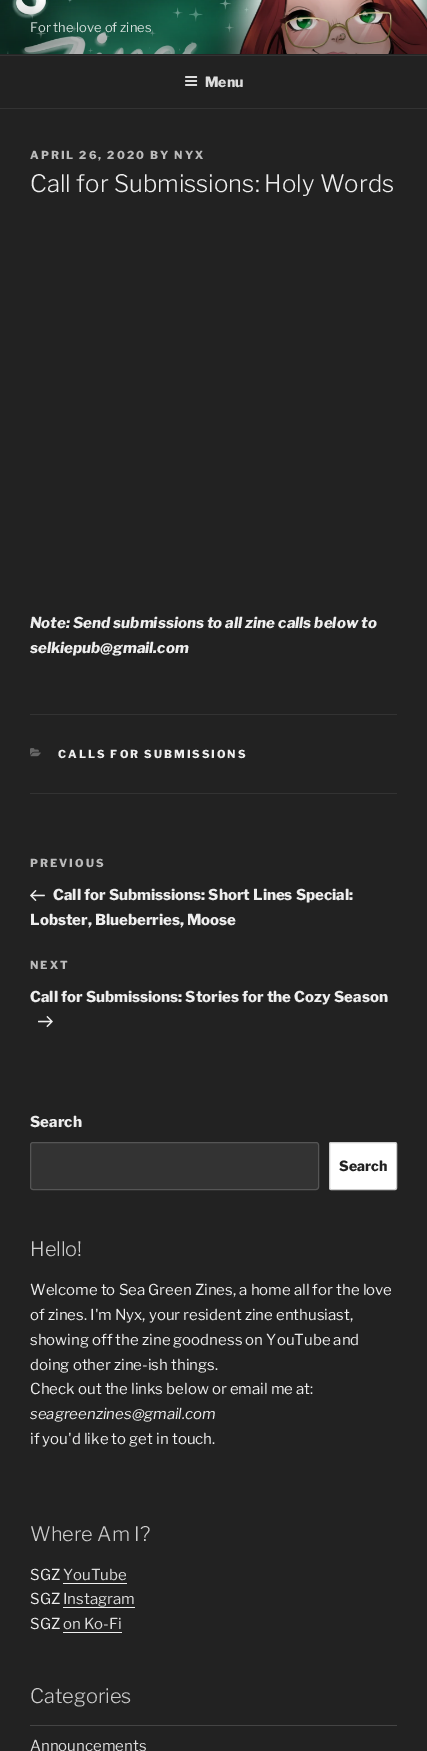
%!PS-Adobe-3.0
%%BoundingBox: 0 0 427 1751
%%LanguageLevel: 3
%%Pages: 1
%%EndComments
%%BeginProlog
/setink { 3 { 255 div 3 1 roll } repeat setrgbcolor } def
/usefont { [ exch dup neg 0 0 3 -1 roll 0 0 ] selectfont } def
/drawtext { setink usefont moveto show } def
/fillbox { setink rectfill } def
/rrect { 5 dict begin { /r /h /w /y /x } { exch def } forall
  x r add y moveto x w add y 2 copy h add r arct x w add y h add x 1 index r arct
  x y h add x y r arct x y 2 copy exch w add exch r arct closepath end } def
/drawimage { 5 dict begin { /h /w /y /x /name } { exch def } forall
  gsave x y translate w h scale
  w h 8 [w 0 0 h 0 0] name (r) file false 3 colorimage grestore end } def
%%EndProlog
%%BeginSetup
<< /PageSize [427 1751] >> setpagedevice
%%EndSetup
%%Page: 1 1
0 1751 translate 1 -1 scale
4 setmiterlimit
0 0 427 1751 34 34 34 fillbox
0 54 427 1 38 38 38 fillbox
(assets/img1.rgb) 0 0 427 54 drawimage
(For the love of zines) 30 32 /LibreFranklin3-Thin 13 208 220 216 drawtext
0 55 427 1 51 51 51 fillbox
0 108 427 1 51 51 51 fillbox
(assets/img2.rgb) 185 76 13 10 drawimage
(Menu) 205 87 /LibreFranklin-Thin 14 221 221 221 drawtext
/LibreFranklin-Thin 11 usefont
187 187 187 setink
30 159 moveto 2 0 (APRIL 26, 2020 BY NYX) ashow
(Call for Submissions: Holy Words) 30 192 /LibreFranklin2-Thin 24 238 238 238 drawtext
(Note: Send submissions to all zine calls below to) 30 628 /LibreFranklin-ThinItalic 15 238 238 238 drawtext
(selkiepub@gmail.com) 30 653 /LibreFranklin-ThinItalic 15 238 238 238 drawtext
30 714 367 1 51 51 51 fillbox
30 793 367 1 51 51 51 fillbox
(assets/img3.rgb) 30 748 11 9 drawimage
/LibreFranklin-Thin 11 usefont
238 238 238 setink
58 758 moveto 2 0 (CALLS FOR SUBMISSIONS) ashow
187 187 187 setink
30 867 moveto 2 0 (PREVIOUS) ashow
(assets/img4.rgb) 30 890 15 11 drawimage
(Call for Submissions: Short Lines Special:) 53 900 /LibreFranklin-Thin 15 238 238 238 drawtext
(Lobster, Blueberries, Moose) 30 925 /LibreFranklin-Thin 15 238 238 238 drawtext
/LibreFranklin-Thin 11 usefont
187 187 187 setink
30 969 moveto 2 0 (NEXT) ashow
(Call for Submissions: Stories for the Cozy Season) 30 1002 /LibreFranklin-Thin 15 238 238 238 drawtext
(assets/img5.rgb) 38 1016 15 12 drawimage
(Search) 30 1127 /LibreFranklin-Thin 15 238 238 238 drawtext
51 51 51 setink
30.5 1142.5 288 47 2.5 rrect gsave fill grestore
85 85 85 setink
stroke
255 255 255 setink
329.5 1142.5 67 47 1.5 rrect gsave fill grestore
204 204 204 setink
stroke
(Search) 339 1171 /LibreFranklin-Thin 14 34 34 34 drawtext
(Hello!) 30 1256 /LibreFranklin2-Thin 20 204 204 204 drawtext
(Welcome to Sea Green Zines, a home all for the love) 30 1295 /LibreFranklin3-Thin 15 238 238 238 drawtext
(of zines. I'm Nyx, your resident zine enthusiast,) 30 1320 /LibreFranklin3-Thin 15 238 238 238 drawtext
(showing off the zine goodness on YouTube and) 30 1345 /LibreFranklin3-Thin 15 238 238 238 drawtext
(doing other zine-ish things.) 30 1370 /LibreFranklin3-Thin 15 238 238 238 drawtext
(Check out the links below or email me at:) 30 1394 /LibreFranklin3-Thin 15 238 238 238 drawtext
(seagreenzines@gmail.com) 30 1419 /LibreFranklin2-ThinItalic 15 238 238 238 drawtext
(if you'd like to get in touch.) 30 1444 /LibreFranklin3-Thin 15 238 238 238 drawtext
(Where Am I?) 30 1541 /LibreFranklin2-Thin 20 204 204 204 drawtext
(SGZ) 30 1580 /LibreFranklin3-Thin 15 238 238 238 drawtext
(YouTube) 63 1580 /LibreFranklin3-Thin 15 221 221 221 drawtext
63 1583 64 1 240 240 240 fillbox
(SGZ) 30 1604 /LibreFranklin3-Thin 15 238 238 238 drawtext
(Instagram) 63 1604 /LibreFranklin3-Thin 15 221 221 221 drawtext
63 1607 72 1 240 240 240 fillbox
(SGZ) 30 1629 /LibreFranklin3-Thin 15 238 238 238 drawtext
(on Ko-Fi) 63 1629 /LibreFranklin3-Thin 15 221 221 221 drawtext
63 1632 59 1 240 240 240 fillbox
(Categories) 30 1703 /LibreFranklin2-Thin 20 204 204 204 drawtext
30 1725 367 1 68 68 68 fillbox
(Announcements) 30 1751 /LibreFranklin3-Thin 15 221 221 221 drawtext
showpage
%%EOF
